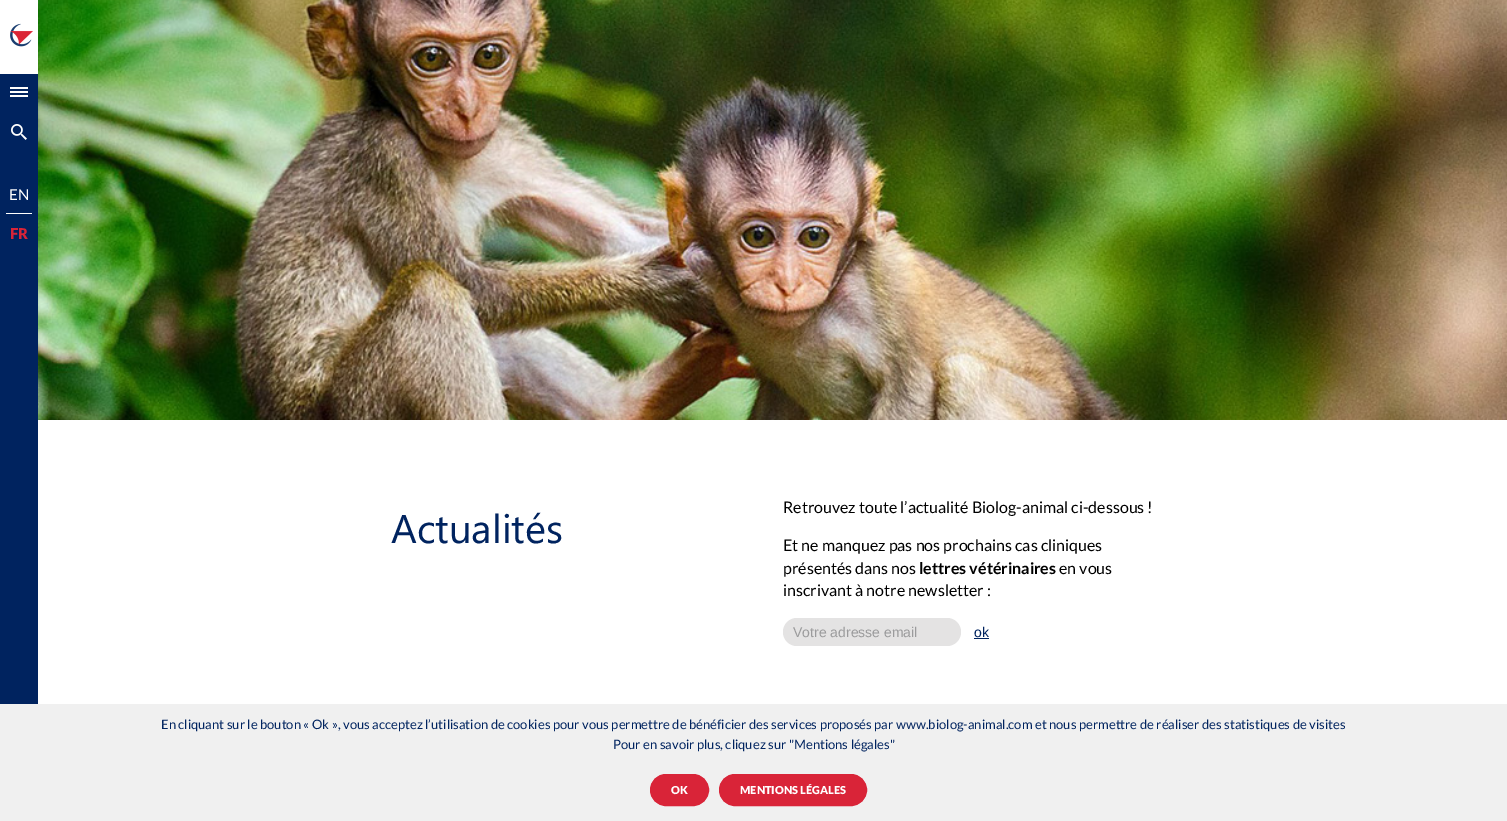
%!PS-Adobe-3.0
%%BoundingBox: 0 0 1507 821
%%LanguageLevel: 3
%%Pages: 1
%%EndComments
%%BeginProlog
/setink { 3 { 255 div 3 1 roll } repeat setrgbcolor } def
/usefont { [ exch dup neg 0 0 3 -1 roll 0 0 ] selectfont } def
/drawtext { setink usefont moveto show } def
/fillbox { setink rectfill } def
/rrect { 5 dict begin { /r /h /w /y /x } { exch def } forall
  x r add y moveto x w add y 2 copy h add r arct x w add y h add x 1 index r arct
  x y h add x y r arct x y 2 copy exch w add exch r arct closepath end } def
/drawimage { 5 dict begin { /h /w /y /x /name } { exch def } forall
  gsave x y translate w h scale
  w h 8 [w 0 0 h 0 0] name (r) file false 3 colorimage grestore end } def
%%EndProlog
%%BeginSetup
<< /PageSize [1507 821] >> setpagedevice
%%EndSetup
%%Page: 1 1
0 821 translate 1 -1 scale
4 setmiterlimit
0 0 1507 821 255 255 255 fillbox
0 74 38 630 0 35 95 fillbox
(assets/img1.rgb) 10 23 23 24 drawimage
10 91 18 2 255 255 255 fillbox
10 87 18 2 255 255 255 fillbox
10 95 18 2 255 255 255 fillbox
(assets/img2.rgb) 11 124 16 16 drawimage
(EN) 9 200 /Lato-Regular 15 255 255 255 drawtext
6 213 26 1 255 255 255 fillbox
(FR) 10 239 /Lato-Black 15 217 36 56 drawtext
(assets/img3.rgb) 38 0 1469 420 drawimage
(Actualités) 391 543 /SegoeUI-Regular 40 0 35 95 drawtext
(Retrouvez toute l’actualité Biolog-animal ci-dessous !) 783 513 /Lato-Regular 16 0 0 0 drawtext
(Et ne manquez pas nos prochains cas cliniques) 783 551 /Lato-Regular 16 0 0 0 drawtext
(présentés dans nos) 783 574 /Lato-Regular 16 0 0 0 drawtext
(lettres vétérinaires) 919 574 /Lato-Bold 16 0 0 0 drawtext
(en vous) 1059 574 /Lato-Regular 16 0 0 0 drawtext
(inscrivant à notre newsletter :) 783 596 /Lato-Regular 16 0 0 0 drawtext
228 227 227 setink
783 618 178 28 14 rrect fill
(Votre adresse email) 793 637 /LiberationSans-Regular 14 155 155 156 drawtext
(ok) 974 637 /LiberationSans-Regular 14 0 35 95 drawtext
974 638 15 1 0 35 95 fillbox
0 704 1507 117 240 240 240 fillbox
(En cliquant sur le bouton « Ok », vous acceptez l’utilisation de cookies pour vous permettre de bénéficier des services proposés par www.biolog-animal.com et nous permettre de réaliser des statistiques de visites) 161 729 /Lato-Regular 13 0 35 95 drawtext
(Pour en savoir plus, cliquez sur "Mentions légales") 613 749 /Lato-Regular 13 0 35 95 drawtext
217 36 56 setink
650.5 774.5 58 31 15.5 rrect gsave fill grestore
stroke
(OK) 671 794 /Lato-Black 11 255 255 255 drawtext
217 36 56 setink
719.5 774.5 147 31 15.5 rrect gsave fill grestore
stroke
(MENTIONS LÉGALES) 740 794 /Lato-Black 11 255 255 255 drawtext
showpage
%%EOF
